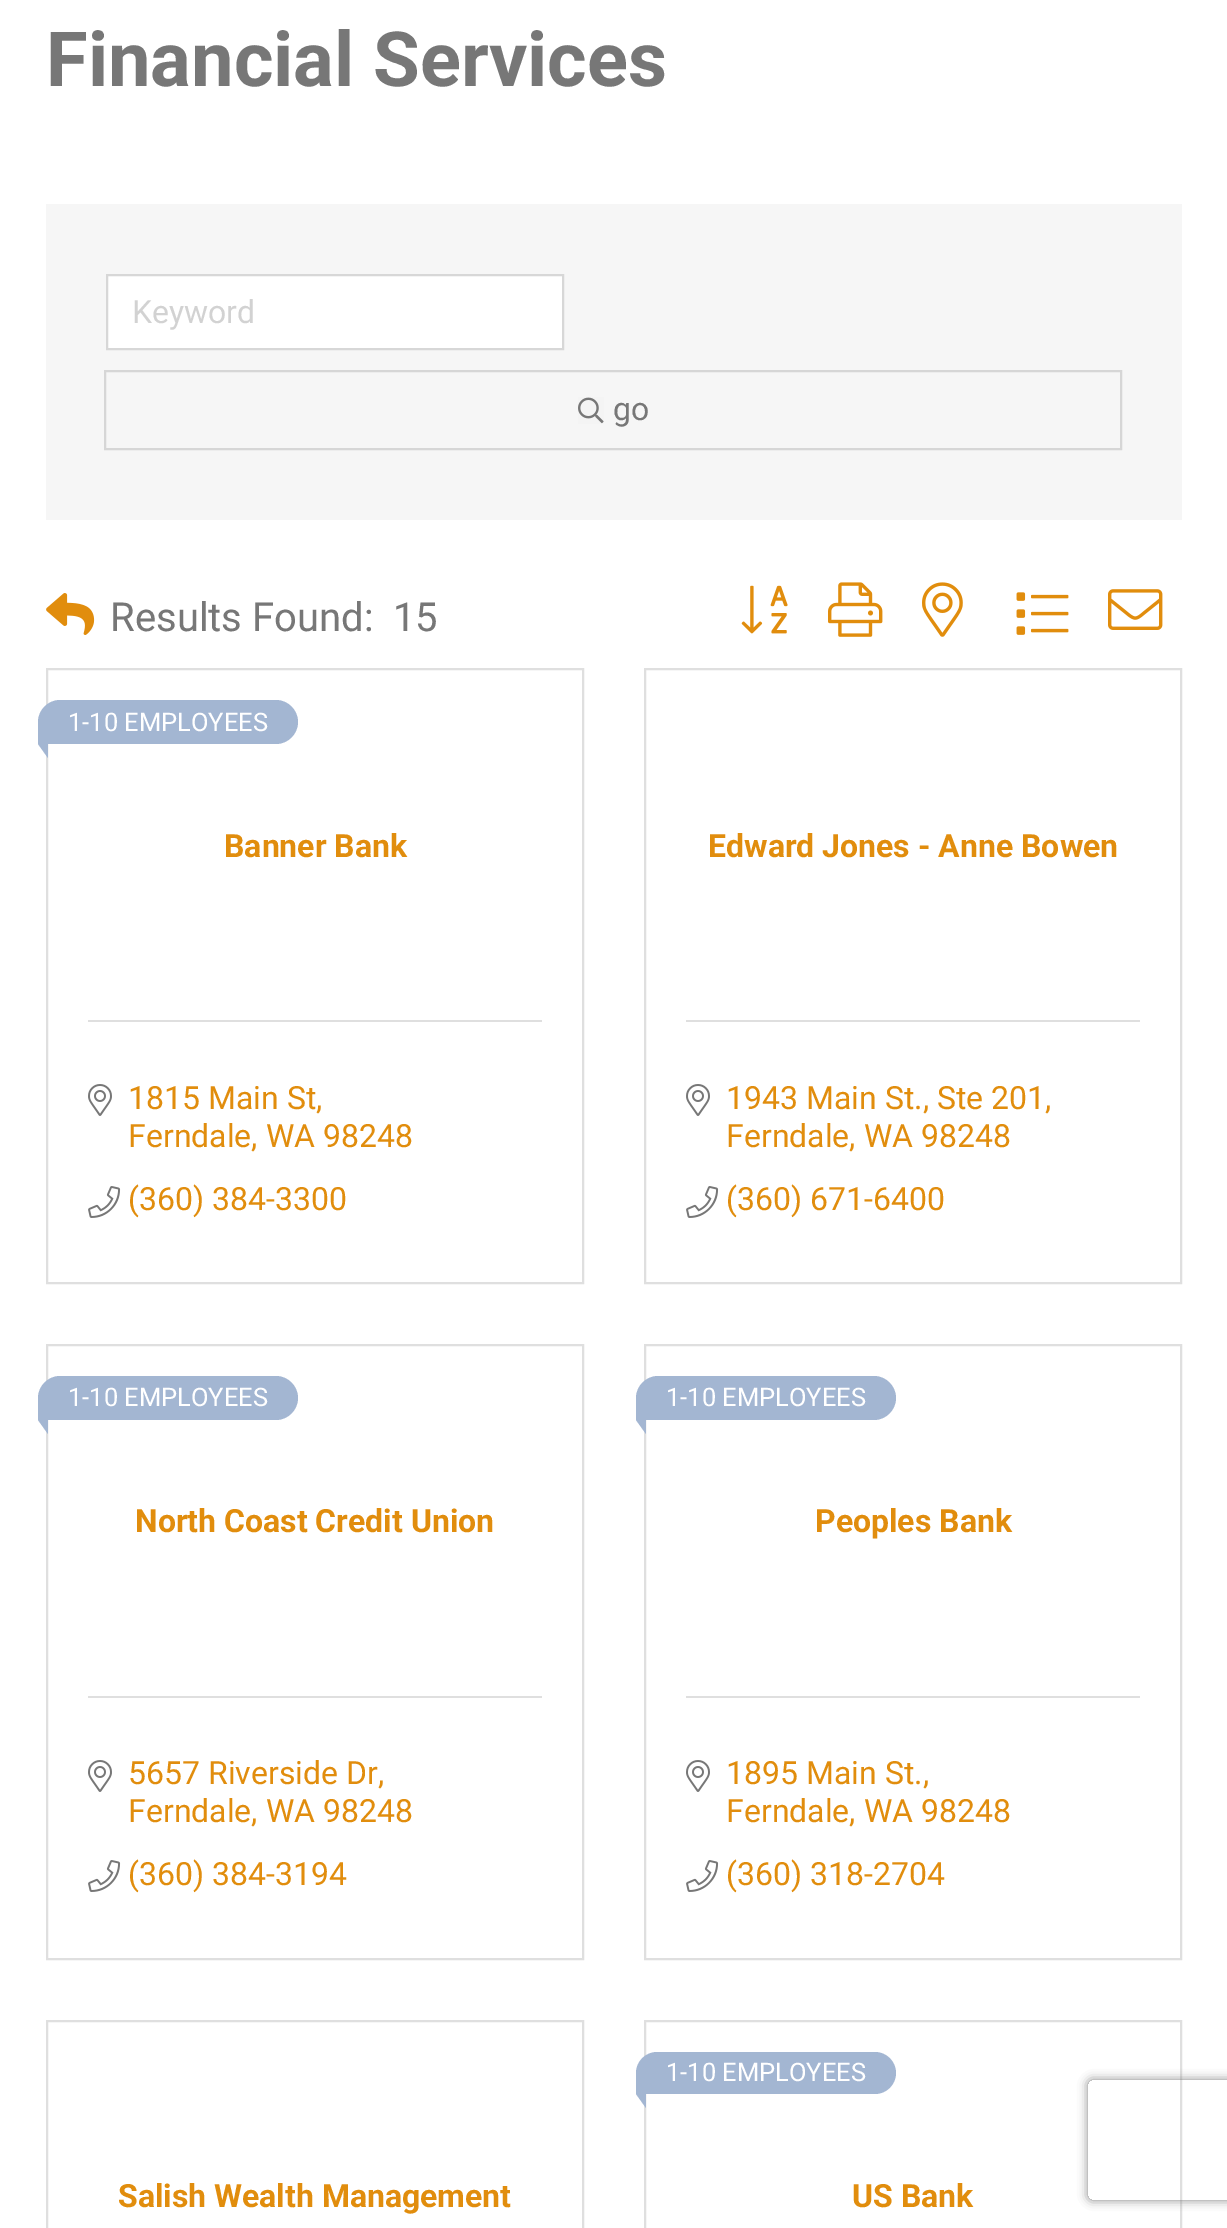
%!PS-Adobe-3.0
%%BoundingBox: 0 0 1227 2228
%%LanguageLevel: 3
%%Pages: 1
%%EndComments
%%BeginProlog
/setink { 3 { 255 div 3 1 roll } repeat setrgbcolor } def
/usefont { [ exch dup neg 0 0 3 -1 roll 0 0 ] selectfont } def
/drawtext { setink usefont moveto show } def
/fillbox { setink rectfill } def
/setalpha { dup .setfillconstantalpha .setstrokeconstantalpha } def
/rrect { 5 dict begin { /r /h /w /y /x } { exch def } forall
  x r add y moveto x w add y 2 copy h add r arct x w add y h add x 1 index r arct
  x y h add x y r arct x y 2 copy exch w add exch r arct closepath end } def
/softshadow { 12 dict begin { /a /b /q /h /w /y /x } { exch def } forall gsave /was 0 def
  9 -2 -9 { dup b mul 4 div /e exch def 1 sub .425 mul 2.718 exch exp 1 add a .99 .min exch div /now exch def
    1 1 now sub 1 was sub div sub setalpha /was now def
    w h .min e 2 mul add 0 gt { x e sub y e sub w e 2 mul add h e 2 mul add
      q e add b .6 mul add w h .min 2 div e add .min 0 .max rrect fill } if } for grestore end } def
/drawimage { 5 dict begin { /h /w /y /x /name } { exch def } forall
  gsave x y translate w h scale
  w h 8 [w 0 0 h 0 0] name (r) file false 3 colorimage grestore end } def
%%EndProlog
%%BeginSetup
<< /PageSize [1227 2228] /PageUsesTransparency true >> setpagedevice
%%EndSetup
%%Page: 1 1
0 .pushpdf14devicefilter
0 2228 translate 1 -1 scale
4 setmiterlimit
0 0 1227 2228 255 255 255 fillbox
(Financial Services) 46 86 /Roboto-Bold 76 119 119 119 drawtext
46 204 1136 316 246 246 246 fillbox
255 255 255 setink
107 275 moveto 563 275 lineto 563 349 lineto 107 349 lineto closepath gsave fill grestore
215 215 215 setink
2 setlinewidth
stroke
(Keyword) 132 323 /Roboto-Regular 32 210 210 210 drawtext
214 214 214 setink
105 371 1016 78 rectstroke
(assets/img1.rgb) 578 397 26 27 drawimage
(go) 613 420 /Roboto-Regular 32 119 119 119 drawtext
(assets/img2.rgb) 46 593 49 42 drawimage
(Results Found:) 110 631 /Roboto-Regular 40 119 119 119 drawtext
(15) 393 631 /Roboto-Regular 40 119 119 119 drawtext
(assets/img3.rgb) 741 585 47 49 drawimage
(assets/img4.rgb) 828 582 55 55 drawimage
(assets/img5.rgb) 922 582 41 55 drawimage
(assets/img6.rgb) 1016 592 53 43 drawimage
(assets/img7.rgb) 1108 589 55 41 drawimage
223 223 223 setink
47 669 536 614 rectstroke
163 182 210 setink
60 700 moveto 276 700 lineto 288 700 298 710 298 722 curveto 298 734 288 744 276 744 curveto 39 744 lineto 38.5 744 38 743.5 38 743 curveto 38 722 lineto 38 710 48 700 60 700 curveto closepath fill
(1-10 EMPLOYEES) 68 731 /Roboto-Regular 25.5 255 255 255 drawtext
163 182 210 setink
48 730 moveto 48 758 lineto 38 744 lineto closepath fill
(Banner Bank) 224 857 /Roboto-Bold 32 225 141 13 drawtext
88 1020 454 2 223 223 223 fillbox
(assets/img8.rgb) 88 1084 24 32 drawimage
(1815 Main St,) 128 1109 /Roboto-Regular 32 225 141 13 drawtext
(Ferndale, WA 98248) 128 1147 /Roboto-Regular 32 225 141 13 drawtext
(assets/img9.rgb) 88 1186 33 32 drawimage
(\(360\) 384-3300) 128 1210 /Roboto-Regular 32 225 141 13 drawtext
223 223 223 setink
645 669 536 614 rectstroke
(Edward Jones - Anne Bowen) 708 857 /Roboto-Bold 32 225 141 13 drawtext
686 1020 454 2 223 223 223 fillbox
(assets/img8.rgb) 686 1084 24 32 drawimage
(1943 Main St., Ste 201,) 726 1109 /Roboto-Regular 32 225 141 13 drawtext
(Ferndale, WA 98248) 726 1147 /Roboto-Regular 32 225 141 13 drawtext
(assets/img9.rgb) 686 1186 33 32 drawimage
(\(360\) 671-6400) 726 1210 /Roboto-Regular 32 225 141 13 drawtext
223 223 223 setink
47 1345 536 614 rectstroke
163 182 210 setink
60 1376 moveto 276 1376 lineto 288 1376 298 1386 298 1398 curveto 298 1410 288 1420 276 1420 curveto 39 1420 lineto 38.5 1420 38 1419.5 38 1419 curveto 38 1398 lineto 38 1386 48 1376 60 1376 curveto closepath fill
(1-10 EMPLOYEES) 68 1406 /Roboto-Regular 25.5 255 255 255 drawtext
163 182 210 setink
48 1406 moveto 48 1434 lineto 38 1420 lineto closepath fill
(North Coast Credit Union) 135 1532 /Roboto-Bold 32 225 141 13 drawtext
88 1696 454 2 223 223 223 fillbox
(assets/img8.rgb) 88 1760 24 32 drawimage
(5657 Riverside Dr,) 128 1784 /Roboto-Regular 32 225 141 13 drawtext
(Ferndale, WA 98248) 128 1822 /Roboto-Regular 32 225 141 13 drawtext
(assets/img9.rgb) 88 1860 33 32 drawimage
(\(360\) 384-3194) 128 1885 /Roboto-Regular 32 225 141 13 drawtext
223 223 223 setink
645 1345 536 614 rectstroke
163 182 210 setink
658 1376 moveto 874 1376 lineto 886 1376 896 1386 896 1398 curveto 896 1410 886 1420 874 1420 curveto 637 1420 lineto 636.5 1420 636 1419.5 636 1419 curveto 636 1398 lineto 636 1386 646 1376 658 1376 curveto closepath fill
(1-10 EMPLOYEES) 666 1406 /Roboto-Regular 25.5 255 255 255 drawtext
163 182 210 setink
646 1406 moveto 646 1434 lineto 636 1420 lineto closepath fill
(Peoples Bank) 815 1532 /Roboto-Bold 32 225 141 13 drawtext
686 1696 454 2 223 223 223 fillbox
(assets/img8.rgb) 686 1760 24 32 drawimage
(1895 Main St.,) 726 1784 /Roboto-Regular 32 225 141 13 drawtext
(Ferndale, WA 98248) 726 1822 /Roboto-Regular 32 225 141 13 drawtext
(assets/img9.rgb) 686 1860 33 32 drawimage
(\(360\) 318-2704) 726 1885 /Roboto-Regular 32 225 141 13 drawtext
223 223 223 setink
47 2021 536 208 rectstroke
(Salish Wealth Management) 118 2207 /Roboto-Bold 32 225 141 13 drawtext
223 223 223 setink
645 2021 536 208 rectstroke
163 182 210 setink
657 2052 moveto 875 2052 lineto 886.5 2052 896 2061.5 896 2073 curveto 896 2084.5 886.5 2094 875 2094 curveto 637 2094 lineto 636.5 2094 636 2093.5 636 2093 curveto 636 2073 lineto 636 2061.5 645.5 2052 657 2052 curveto closepath fill
(1-10 EMPLOYEES) 666 2081 /Roboto-Regular 25.5 255 255 255 drawtext
163 182 210 setink
646 2080 moveto 646 2108 lineto 636 2094 lineto closepath fill
(US Bank) 852 2207 /Roboto-Bold 32 225 141 13 drawtext
gsave
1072 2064 moveto 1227 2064 lineto 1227 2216 lineto 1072 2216 lineto closepath 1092 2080 moveto 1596 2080 lineto 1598 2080 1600 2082 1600 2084 curveto 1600 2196 lineto 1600 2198 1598 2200 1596 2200 curveto 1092 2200 lineto 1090 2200 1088 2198 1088 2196 curveto 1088 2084 lineto 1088 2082 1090 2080 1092 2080 curveto closepath eoclip newpath
128 128 128 setink
1088 2080 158 120 4 5 1 softshadow
grestore
.poppdf14devicefilter showpage
%%EOF
